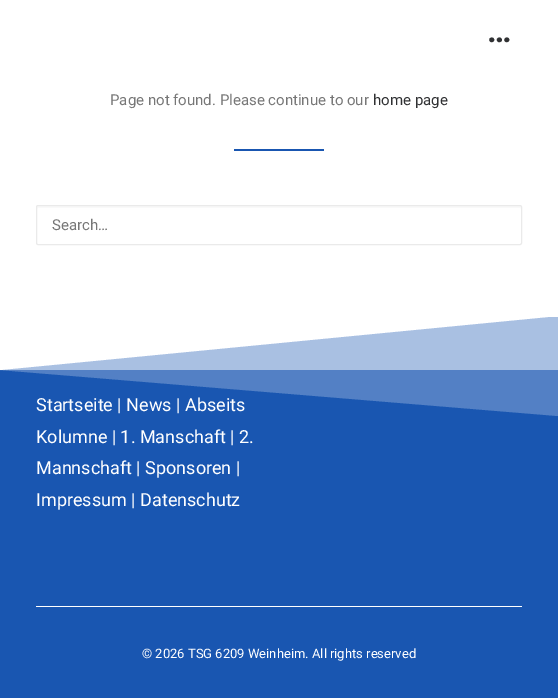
%!PS-Adobe-3.0
%%BoundingBox: 0 0 558 698
%%LanguageLevel: 3
%%Pages: 1
%%EndComments
%%BeginProlog
/setink { 3 { 255 div 3 1 roll } repeat setrgbcolor } def
/usefont { [ exch dup neg 0 0 3 -1 roll 0 0 ] selectfont } def
/drawtext { setink usefont moveto show } def
/fillbox { setink rectfill } def
/setalpha { dup .setfillconstantalpha .setstrokeconstantalpha } def
/rrect { 5 dict begin { /r /h /w /y /x } { exch def } forall
  x r add y moveto x w add y 2 copy h add r arct x w add y h add x 1 index r arct
  x y h add x y r arct x y 2 copy exch w add exch r arct closepath end } def
%%EndProlog
%%BeginSetup
<< /PageSize [558 698] /PageUsesTransparency true >> setpagedevice
%%EndSetup
%%Page: 1 1
0 .pushpdf14devicefilter
0 698 translate 1 -1 scale
4 setmiterlimit
0 0 558 698 255 255 255 fillbox
(…) 487 42 /Roboto-Bold 33 48 49 51 drawtext
(Page not found. Please continue to our) 110 105 /Roboto-Regular 15 119 119 119 drawtext
(home page) 373 105 /Roboto-Regular 15 48 49 51 drawtext
234 149 90 2 25 86 177 fillbox
249 249 249 setink
38 208 moveto 520 208 lineto 521 208 521 208 521 209 curveto 521 207 lineto 521 206 521 206 520 206 curveto 38 206 lineto 37 206 37 206 37 207 curveto 37 209 lineto 37 208 37 208 38 208 curveto closepath fill
234 234 234 setink
36.5 205.5 485 39 1.5 rrect stroke
(Search…) 52 230 /Roboto-Regular 15 119 119 119 drawtext
0 317 558 381 25 86 177 fillbox
0.25 setalpha
255 255 255 setink
0 316 moveto 558 316 lineto 558 416 lineto 0 370 lineto closepath fill
1 setalpha
558 316 moveto 0 316 lineto 0 370 lineto closepath fill
0.5 setalpha
0 317 558 53 255 255 255 fillbox
1 setalpha
(Startseite | News | Abseits) 36 411 /Roboto-Regular 18 255 255 255 drawtext
(Kolumne | 1. Manschaft | 2.) 36 443 /Roboto-Regular 18 255 255 255 drawtext
(Mannschaft | Sponsoren |) 36 474 /Roboto-Regular 18 255 255 255 drawtext
(Impressum | Datenschutz) 36 506 /Roboto-Regular 18 255 255 255 drawtext
36 606 486 1 255 255 255 fillbox
(© 2026 TSG 6209 Weinheim. All rights reserved) 142 658 /Roboto-Regular 13 255 255 255 drawtext
.poppdf14devicefilter showpage
%%EOF
